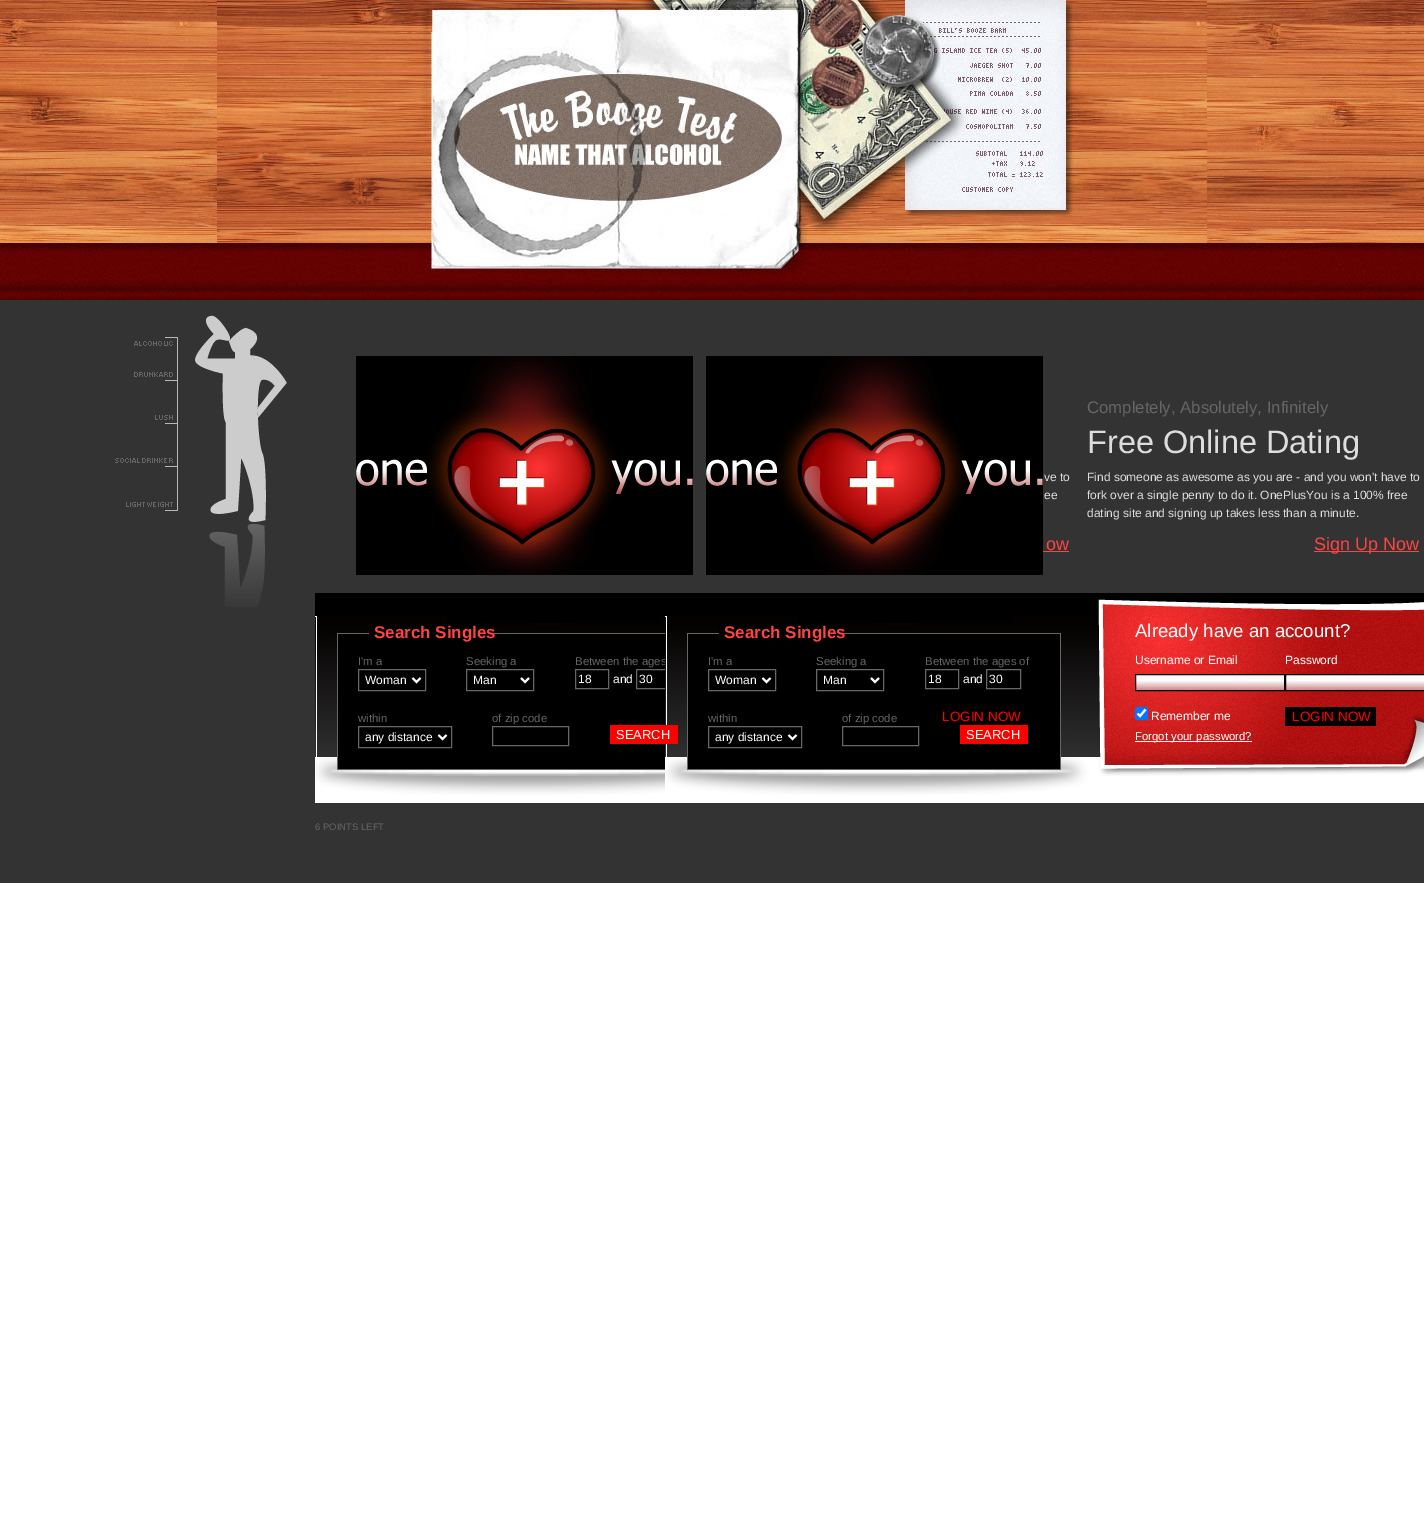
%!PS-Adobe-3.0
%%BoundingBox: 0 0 1424 1527
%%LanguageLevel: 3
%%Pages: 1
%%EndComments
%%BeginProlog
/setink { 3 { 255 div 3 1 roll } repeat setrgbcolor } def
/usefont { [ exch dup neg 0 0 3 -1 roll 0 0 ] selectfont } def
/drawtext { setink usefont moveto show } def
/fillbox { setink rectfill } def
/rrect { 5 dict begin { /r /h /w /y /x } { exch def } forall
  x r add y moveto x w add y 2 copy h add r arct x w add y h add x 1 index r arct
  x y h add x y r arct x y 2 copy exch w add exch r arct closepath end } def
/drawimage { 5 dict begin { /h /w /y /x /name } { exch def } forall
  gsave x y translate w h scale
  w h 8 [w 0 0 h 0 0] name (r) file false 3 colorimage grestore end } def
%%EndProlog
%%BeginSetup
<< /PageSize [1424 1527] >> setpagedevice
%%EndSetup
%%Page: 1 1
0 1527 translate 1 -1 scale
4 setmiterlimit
0 0 1424 1527 255 255 255 fillbox
0 300 1424 583 51 51 51 fillbox
(assets/img1.rgb) 0 0 1424 300 drawimage
(assets/img2.rgb) 217 0 990 299 drawimage
(assets/img3.rgb) 115 315 172 292 drawimage
(assets/img4.rgb) 195 315 92 207 drawimage
(assets/img5.rgb) 706 356 337 219 drawimage
(Completely, Absolutely, Infinitely) 1087 413 /LiberationSans-Regular 16.75 102 102 102 drawtext
(Free Online Dating) 1087 453 /LiberationSans-Regular 32.5 221 221 221 drawtext
(Find someone as awesome as you are - and you won't have to) 1087 481 /LiberationSans-Regular 12 221 221 221 drawtext
(fork over a single penny to do it. OnePlusYou is a 100% free) 1087 499 /LiberationSans-Regular 12 221 221 221 drawtext
(dating site and signing up takes less than a minute.) 1087 517 /LiberationSans-Regular 12 221 221 221 drawtext
1314 551 105 1 255 68 68 fillbox
(Sign Up Now) 1314 550 /LiberationSans-Regular 18 255 68 68 drawtext
(assets/img9.rgb) 315 593 350 202 drawimage
(Between the ages) 575 665 /LiberationSans-Regular 11.4 102 102 102 drawtext
636.5 669.5 34 19 rectstroke
(assets/img6.rgb) 665 593 759 202 drawimage
(Search Singles) 724 638 /LiberationSans-Bold 17 255 68 68 drawtext
(I'm a) 708 665 /LiberationSans-Regular 11.4 102 102 102 drawtext
708.5 669.5 67 21 rectstroke
255 255 255 setink
2 setlinewidth
762.5 678 moveto 766.5 682 lineto 770.5 678 lineto stroke
(Woman) 715 684 /LiberationSans-Regular 12 255 255 255 drawtext
(Seeking a) 816 665 /LiberationSans-Regular 11.4 102 102 102 drawtext
1 setlinewidth
816.5 669.5 67 21 rectstroke
255 255 255 setink
2 setlinewidth
871 678 moveto 875 682 lineto 879 678 lineto stroke
(Man) 823 684 /LiberationSans-Regular 12 255 255 255 drawtext
(Between the ages of) 925 665 /LiberationSans-Regular 11.4 102 102 102 drawtext
1 setlinewidth
925.5 669.5 33 19 rectstroke
(18) 928 683 /LiberationSans-Regular 12 255 255 255 drawtext
(and) 963 683 /LiberationSans-Regular 12 255 255 255 drawtext
102 102 102 setink
986.5 669.5 34 19 rectstroke
(30) 989 683 /LiberationSans-Regular 12 255 255 255 drawtext
(within) 708 722 /LiberationSans-Regular 11.4 102 102 102 drawtext
708.5 726.5 93 21 rectstroke
255 255 255 setink
2 setlinewidth
788.5 735 moveto 792.5 739 lineto 796.5 735 lineto stroke
(any distance) 715 741 /LiberationSans-Regular 12 255 255 255 drawtext
(of zip code) 842 722 /LiberationSans-Regular 11.4 102 102 102 drawtext
1 setlinewidth
842.5 726.5 76 19 rectstroke
960 725 68 19 255 0 0 fillbox
(SEARCH) 966 739 /LiberationSans-Regular 13 255 255 255 drawtext
(Already have an account?) 1135 637 /LiberationSans-Regular 18.6 255 255 255 drawtext
(Username or Email) 1135 664 /LiberationSans-Regular 12 255 255 255 drawtext
(Password) 1285 664 /LiberationSans-Regular 12 255 255 255 drawtext
1136 675 148 6 255 255 255 fillbox
(assets/img7.rgb) 1136 681 148 9 drawimage
0 0 0 setink
1135.5 674.5 149 16 rectstroke
1286 675 138 6 255 255 255 fillbox
(assets/img8.rgb) 1286 681 138 9 drawimage
0 0 0 setink
1285.5 674.5 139 16 rectstroke
0 117 255 setink
1135 707 13 13 2 rrect fill
255 255 255 setink
2.1 setlinewidth
1137.5 713.5 moveto 1140 716 lineto 1145.5 709.5 lineto stroke
(Remember me) 1151 720 /LiberationSans-Regular 12 255 255 255 drawtext
1285 707 91 19 0 0 0 fillbox
(LOGIN NOW) 1292 721 /LiberationSans-Regular 13.5 255 0 0 drawtext
1135 741 117 1 255 255 255 fillbox
(Forgot your password?) 1135 740 /LiberationSans-Regular 11.4 255 255 255 drawtext
(assets/img5.rgb) 356 356 337 219 drawimage
(ve to) 1044 481 /LiberationSans-Regular 12 221 221 221 drawtext
(ee) 1044 499 /LiberationSans-Regular 12 221 221 221 drawtext
(ow) 1046 550 /LiberationSans-Regular 18 255 68 68 drawtext
1043 551 26 1 255 68 68 fillbox
315 795 1109 8 255 255 255 fillbox
(Search Singles) 374 638 /LiberationSans-Bold 17 255 68 68 drawtext
(I'm a) 358 665 /LiberationSans-Regular 11.4 102 102 102 drawtext
1 setlinewidth
358.5 669.5 67 21 rectstroke
255 255 255 setink
2 setlinewidth
412.5 678 moveto 416.5 682 lineto 420.5 678 lineto stroke
(Woman) 365 684 /LiberationSans-Regular 12 255 255 255 drawtext
(Seeking a) 466 665 /LiberationSans-Regular 11.4 102 102 102 drawtext
1 setlinewidth
466.5 669.5 67 21 rectstroke
255 255 255 setink
2 setlinewidth
521 678 moveto 525 682 lineto 529 678 lineto stroke
(Man) 473 684 /LiberationSans-Regular 12 255 255 255 drawtext
102 102 102 setink
1 setlinewidth
575.5 669.5 33 19 rectstroke
(18) 578 683 /LiberationSans-Regular 12 255 255 255 drawtext
(and) 613 683 /LiberationSans-Regular 12 255 255 255 drawtext
(30) 639 683 /LiberationSans-Regular 12 255 255 255 drawtext
(within) 358 722 /LiberationSans-Regular 11.4 102 102 102 drawtext
358.5 726.5 93 21 rectstroke
255 255 255 setink
2 setlinewidth
438.5 735 moveto 442.5 739 lineto 446.5 735 lineto stroke
(any distance) 365 741 /LiberationSans-Regular 12 255 255 255 drawtext
(of zip code) 492 722 /LiberationSans-Regular 11.4 102 102 102 drawtext
1 setlinewidth
492.5 726.5 76 19 rectstroke
610 725 68 19 255 0 0 fillbox
(SEARCH) 616 739 /LiberationSans-Regular 13 255 255 255 drawtext
(LOGIN NOW) 942 721 /LiberationSans-Regular 13.5 255 0 0 drawtext
(6 POINTS LEFT) 315 830 /LiberationSans-Regular 9.5 102 102 102 drawtext
showpage
%%EOF
